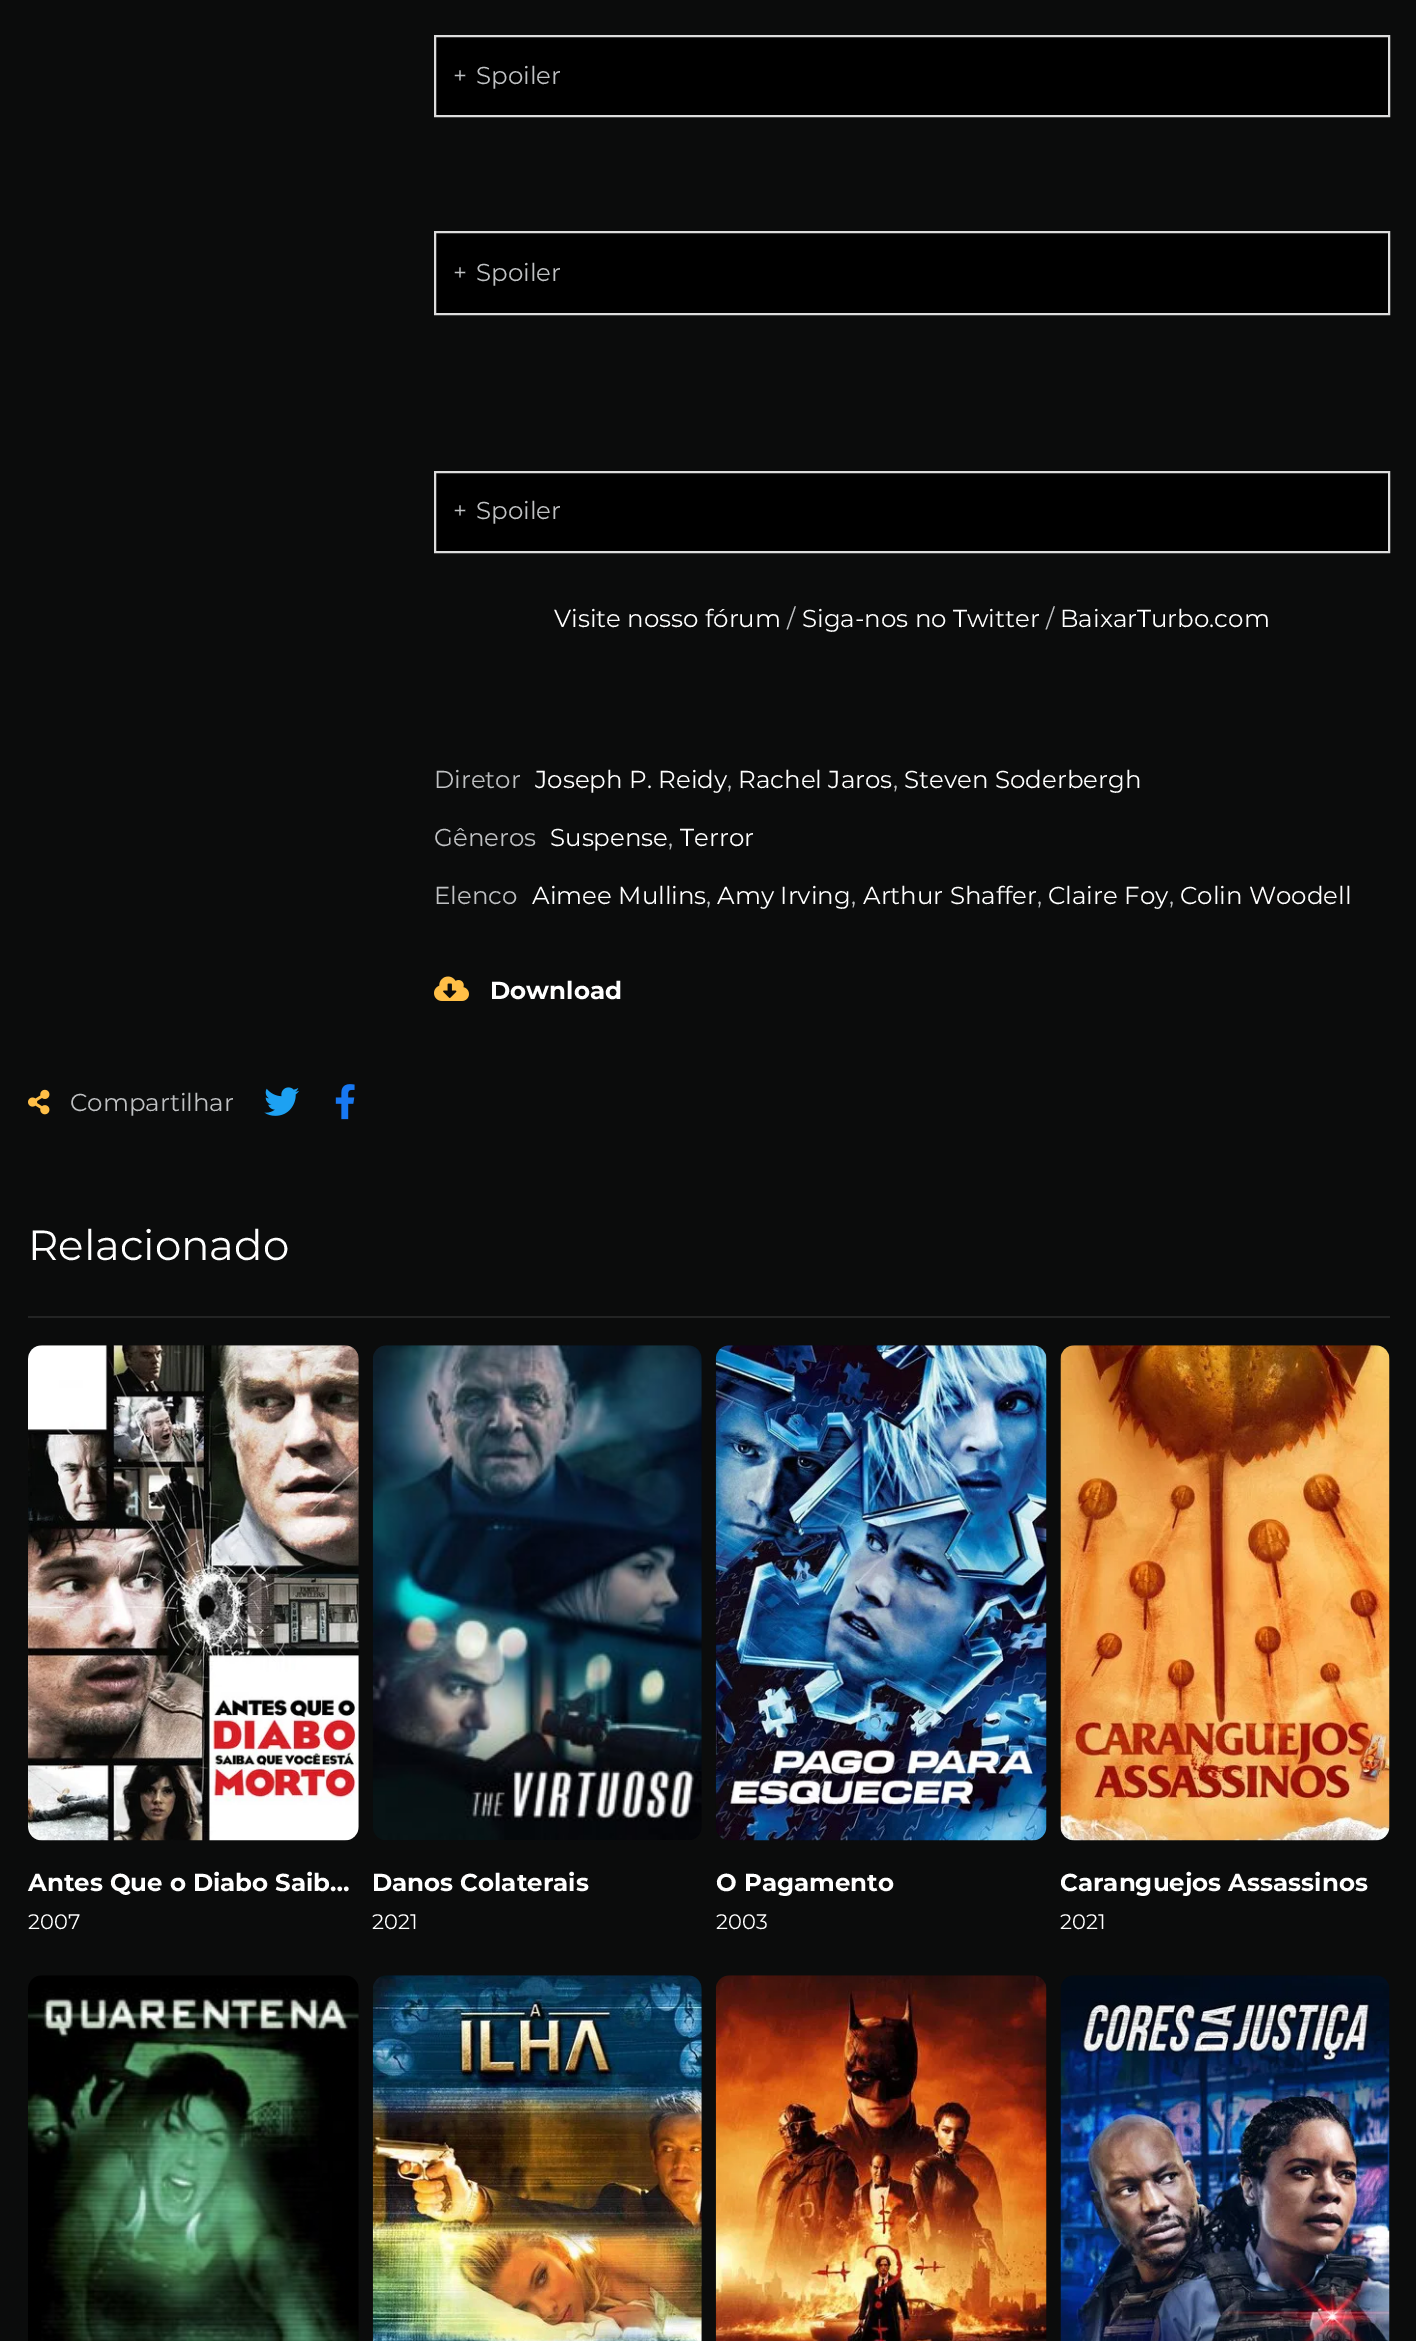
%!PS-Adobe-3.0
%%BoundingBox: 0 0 1416 2341
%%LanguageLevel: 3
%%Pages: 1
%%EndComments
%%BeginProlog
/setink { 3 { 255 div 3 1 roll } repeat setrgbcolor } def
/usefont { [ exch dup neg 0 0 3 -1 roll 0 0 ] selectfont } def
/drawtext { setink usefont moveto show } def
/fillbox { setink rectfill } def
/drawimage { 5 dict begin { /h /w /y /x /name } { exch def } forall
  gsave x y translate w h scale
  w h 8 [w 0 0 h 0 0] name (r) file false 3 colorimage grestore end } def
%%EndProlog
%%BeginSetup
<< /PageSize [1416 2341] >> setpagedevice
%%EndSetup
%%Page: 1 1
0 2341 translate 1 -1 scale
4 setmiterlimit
0 0 1416 2341 11 12 12 fillbox
0 0 0 setink
435 36 moveto 1389 36 lineto 1389 116 lineto 435 116 lineto closepath gsave fill grestore
221 221 221 setink
2 setlinewidth
stroke
(+) 453 84 /Montserrat-Regular 24.5 191 193 195 drawtext
(Spoiler) 476 84 /Montserrat-Regular 24.5 191 193 195 drawtext
0 0 0 setink
435 232 moveto 1389 232 lineto 1389 314 lineto 435 314 lineto closepath gsave fill grestore
221 221 221 setink
stroke
(+) 453 281 /Montserrat-Regular 24.5 191 193 195 drawtext
(Spoiler) 476 281 /Montserrat-Regular 24.5 191 193 195 drawtext
0 0 0 setink
435 472 moveto 1389 472 lineto 1389 552 lineto 435 552 lineto closepath gsave fill grestore
221 221 221 setink
stroke
(+) 453 519 /Montserrat-Regular 24.5 191 193 195 drawtext
(Spoiler) 476 519 /Montserrat-Regular 24.5 191 193 195 drawtext
(Visite nosso fórum) 554 627 /Montserrat-Regular 24.5 255 255 255 drawtext
(/) 787 627 /Montserrat-Regular 24.5 191 193 195 drawtext
(Siga-nos no Twitter) 802 627 /Montserrat-Regular 24.5 255 255 255 drawtext
(/) 1046 627 /Montserrat-Regular 24.5 191 193 195 drawtext
(BaixarTurbo.com) 1060 627 /Montserrat-Regular 24.5 255 255 255 drawtext
(Diretor) 434 788 /Montserrat-Regular 24.5 191 193 195 drawtext
(Joseph P. Reidy) 535 788 /Montserrat-Regular 24.5 255 255 255 drawtext
(,) 727 788 /Montserrat-Regular 24.5 191 193 195 drawtext
(Rachel Jaros) 738 788 /Montserrat-Regular 24.5 255 255 255 drawtext
(,) 893 788 /Montserrat-Regular 24.5 191 193 195 drawtext
(Steven Soderbergh) 904 788 /Montserrat-Regular 24.5 255 255 255 drawtext
(Gêneros) 434 846 /Montserrat-Regular 24.5 191 193 195 drawtext
(Suspense) 550 846 /Montserrat-Regular 24.5 255 255 255 drawtext
(,) 668 846 /Montserrat-Regular 24.5 191 193 195 drawtext
(Terror) 680 846 /Montserrat-Regular 24.5 255 255 255 drawtext
(Elenco) 434 904 /Montserrat-Regular 24.5 191 193 195 drawtext
(Aimee Mullins) 532 904 /Montserrat-Regular 24.5 255 255 255 drawtext
(,) 706 904 /Montserrat-Regular 24.5 191 193 195 drawtext
(Amy Irving) 717 904 /Montserrat-Regular 24.5 255 255 255 drawtext
(,) 851 904 /Montserrat-Regular 24.5 191 193 195 drawtext
(Arthur Shaffer) 863 904 /Montserrat-Regular 24.5 255 255 255 drawtext
(,) 1037 904 /Montserrat-Regular 24.5 191 193 195 drawtext
(Claire Foy) 1048 904 /Montserrat-Regular 24.5 255 255 255 drawtext
(,) 1169 904 /Montserrat-Regular 24.5 191 193 195 drawtext
(Colin Woodell) 1180 904 /Montserrat-Regular 24.5 255 255 255 drawtext
(assets/img1.rgb) 434 976 35 25 drawimage
(Download) 490 999 /Montserrat-Bold 24.5 255 255 255 drawtext
(assets/img2.rgb) 28 1089 22 26 drawimage
(Compartilhar) 70 1111 /Montserrat-Regular 24.5 191 193 195 drawtext
(assets/img3.rgb) 264 1087 36 29 drawimage
(assets/img4.rgb) 335 1084 20 36 drawimage
28 1316 1362 2 35 36 36 fillbox
(Relacionado) 28 1260 /Montserrat-Regular 42 255 255 255 drawtext
(assets/img5.rgb) 28 1345 331 496 drawimage
(Antes Que o Diabo Saib…) 28 1891 /Montserrat-Bold 24.5 255 255 255 drawtext
(2007) 28 1929 /Montserrat-Regular 21 255 255 255 drawtext
(assets/img6.rgb) 372 1345 330 495 drawimage
(Danos Colaterais) 372 1891 /Montserrat-Bold 24.5 255 255 255 drawtext
(2021) 372 1929 /Montserrat-Regular 21 255 255 255 drawtext
(assets/img7.rgb) 715 1345 332 496 drawimage
(O Pagamento) 716 1891 /Montserrat-Bold 24.5 255 255 255 drawtext
(2003) 716 1929 /Montserrat-Regular 21 255 255 255 drawtext
(assets/img8.rgb) 1060 1345 330 496 drawimage
gsave
1061 1869 329 28 rectclip
(Caranguejos Assassinos) 1060 1891 /Montserrat-Bold 24.5 255 255 255 drawtext
grestore
(2021) 1060 1929 /Montserrat-Regular 21 255 255 255 drawtext
(assets/img9.rgb) 28 1975 331 366 drawimage
(assets/img10.rgb) 372 1975 330 366 drawimage
(assets/img11.rgb) 715 1975 332 366 drawimage
(assets/img12.rgb) 1060 1975 330 366 drawimage
showpage
%%EOF
